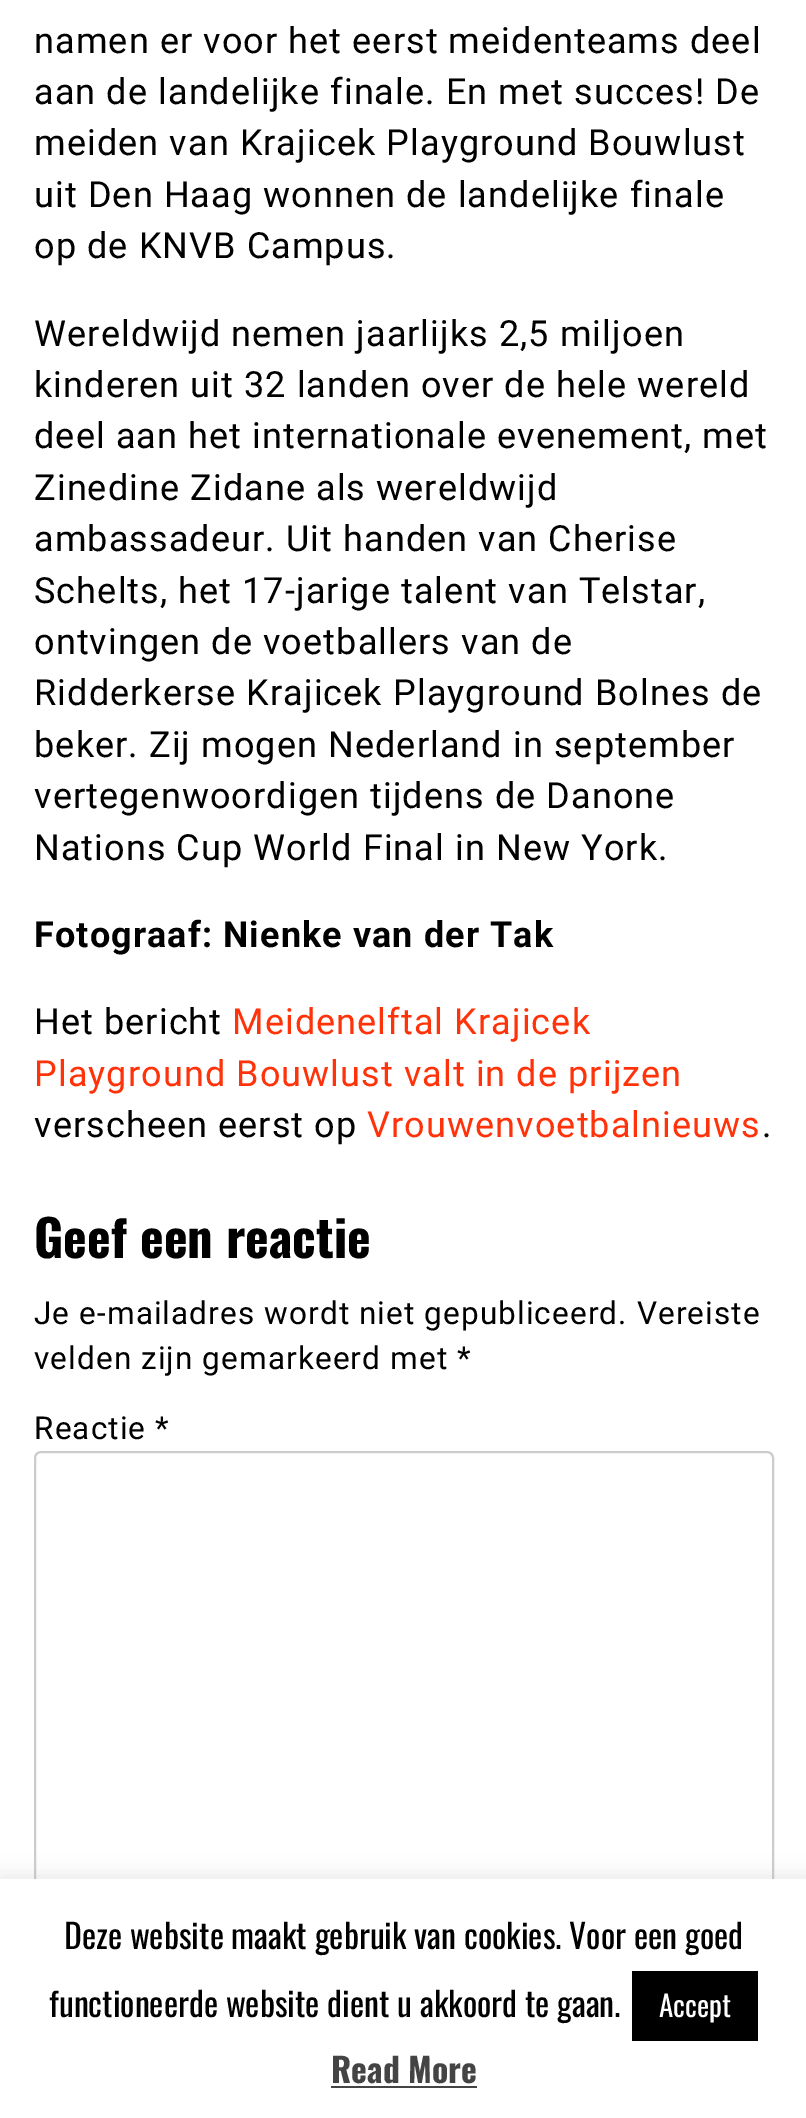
%!PS-Adobe-3.0
%%BoundingBox: 0 0 806 2118
%%LanguageLevel: 3
%%Pages: 1
%%EndComments
%%BeginProlog
/setink { 3 { 255 div 3 1 roll } repeat setrgbcolor } def
/usefont { [ exch dup neg 0 0 3 -1 roll 0 0 ] selectfont } def
/drawtext { setink usefont moveto show } def
/fillbox { setink rectfill } def
/setalpha { dup .setfillconstantalpha .setstrokeconstantalpha } def
/rrect { 5 dict begin { /r /h /w /y /x } { exch def } forall
  x r add y moveto x w add y 2 copy h add r arct x w add y h add x 1 index r arct
  x y h add x y r arct x y 2 copy exch w add exch r arct closepath end } def
/softshadow { 12 dict begin { /a /b /q /h /w /y /x } { exch def } forall gsave /was 0 def
  9 -2 -9 { dup b mul 4 div /e exch def 1 sub .425 mul 2.718 exch exp 1 add a .99 .min exch div /now exch def
    1 1 now sub 1 was sub div sub setalpha /was now def
    w h .min e 2 mul add 0 gt { x e sub y e sub w e 2 mul add h e 2 mul add
      q e add b .6 mul add w h .min 2 div e add .min 0 .max rrect fill } if } for grestore end } def
%%EndProlog
%%BeginSetup
<< /PageSize [806 2118] /PageUsesTransparency true >> setpagedevice
%%EndSetup
%%Page: 1 1
0 .pushpdf14devicefilter
0 2118 translate 1 -1 scale
4 setmiterlimit
0 0 806 2118 255 255 255 fillbox
/Roboto-Regular 36 usefont
0 0 0 setink
34 53 moveto 1.1 0 (namen er voor het eerst meidenteams deel) ashow
34 104 moveto 1.1 0 (aan de landelijke finale. En met succes! De) ashow
34 155 moveto 1.1 0 (meiden van Krajicek Playground Bouwlust) ashow
34 207 moveto 1.1 0 (uit Den Haag wonnen de landelijke finale) ashow
34 258 moveto 1.1 0 (op de KNVB Campus.) ashow
34 346 moveto 1.1 0 (Wereldwijd nemen jaarlijks 2,5 miljoen) ashow
34 397 moveto 1.1 0 (kinderen uit 32 landen over de hele wereld) ashow
34 448 moveto 1.1 0 (deel aan het internationale evenement, met) ashow
34 500 moveto 1.1 0 (Zinedine Zidane als wereldwijd) ashow
34 551 moveto 1.1 0 (ambassadeur. Uit handen van Cherise) ashow
34 603 moveto 1.1 0 (Schelts, het 17-jarige talent van Telstar,) ashow
34 654 moveto 1.1 0 (ontvingen de voetballers van de) ashow
34 705 moveto 1.1 0 (Ridderkerse Krajicek Playground Bolnes de) ashow
34 757 moveto 1.1 0 (beker. Zij mogen Nederland in september) ashow
34 808 moveto 1.1 0 (vertegenwoordigen tijdens de Danone) ashow
34 860 moveto 1.1 0 (Nations Cup World Final in New York.) ashow
/Roboto-Bold 36 usefont
34 947 moveto 1.1 0 (Fotograaf: Nienke van der Tak) ashow
/Roboto-Regular 36 usefont
34 1034 moveto 1.1 0 (Het bericht) ashow
255 50 9 setink
232 1034 moveto 1.1 0 (Meidenelftal Krajicek) ashow
34 1086 moveto 1.1 0 (Playground Bouwlust valt in de prijzen) ashow
0 0 0 setink
34 1137 moveto 1.1 0 (verscheen eerst op) ashow
255 50 9 setink
367 1137 moveto 1.1 0 (Vrouwenvoetbalnieuws) ashow
0 0 0 setink
762 1137 moveto 1.1 0 (.) ashow
(Geef een reactie) 34 1258 /Oswald-Bold 50.5 0 0 0 drawtext
/Roboto-Regular 31.5 usefont
34 1324 moveto 1.1 0 (Je e-mailadres wordt niet gepubliceerd. Vereiste) ashow
34 1369 moveto 1.1 0 (velden zijn gemarkeerd met *) ashow
34 1439 moveto 1.1 0 (Reactie *) ashow
204 204 204 setink
2 setlinewidth
35 1452 738 471 6 rrect stroke
172 171 171 setink
0 1877 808 240 0 11 0.3 softshadow
0 1879 806 239 255 255 255 fillbox
(Deze website maakt gebruik van cookies. Voor een goed) 64 1949 /Oswald-Regular 33.75 0 0 0 drawtext
(functioneerde website dient u akkoord te gaan.) 49 2017 /Oswald-Regular 33.75 0 0 0 drawtext
632 1971 126 70 0 0 0 fillbox
(Accept) 659 2017 /Oswald-Regular 29 255 255 255 drawtext
(Read More) 331 2083 /Oswald-Bold 33.75 68 68 68 drawtext
331 2086 146 2 68 68 68 fillbox
.poppdf14devicefilter showpage
%%EOF
